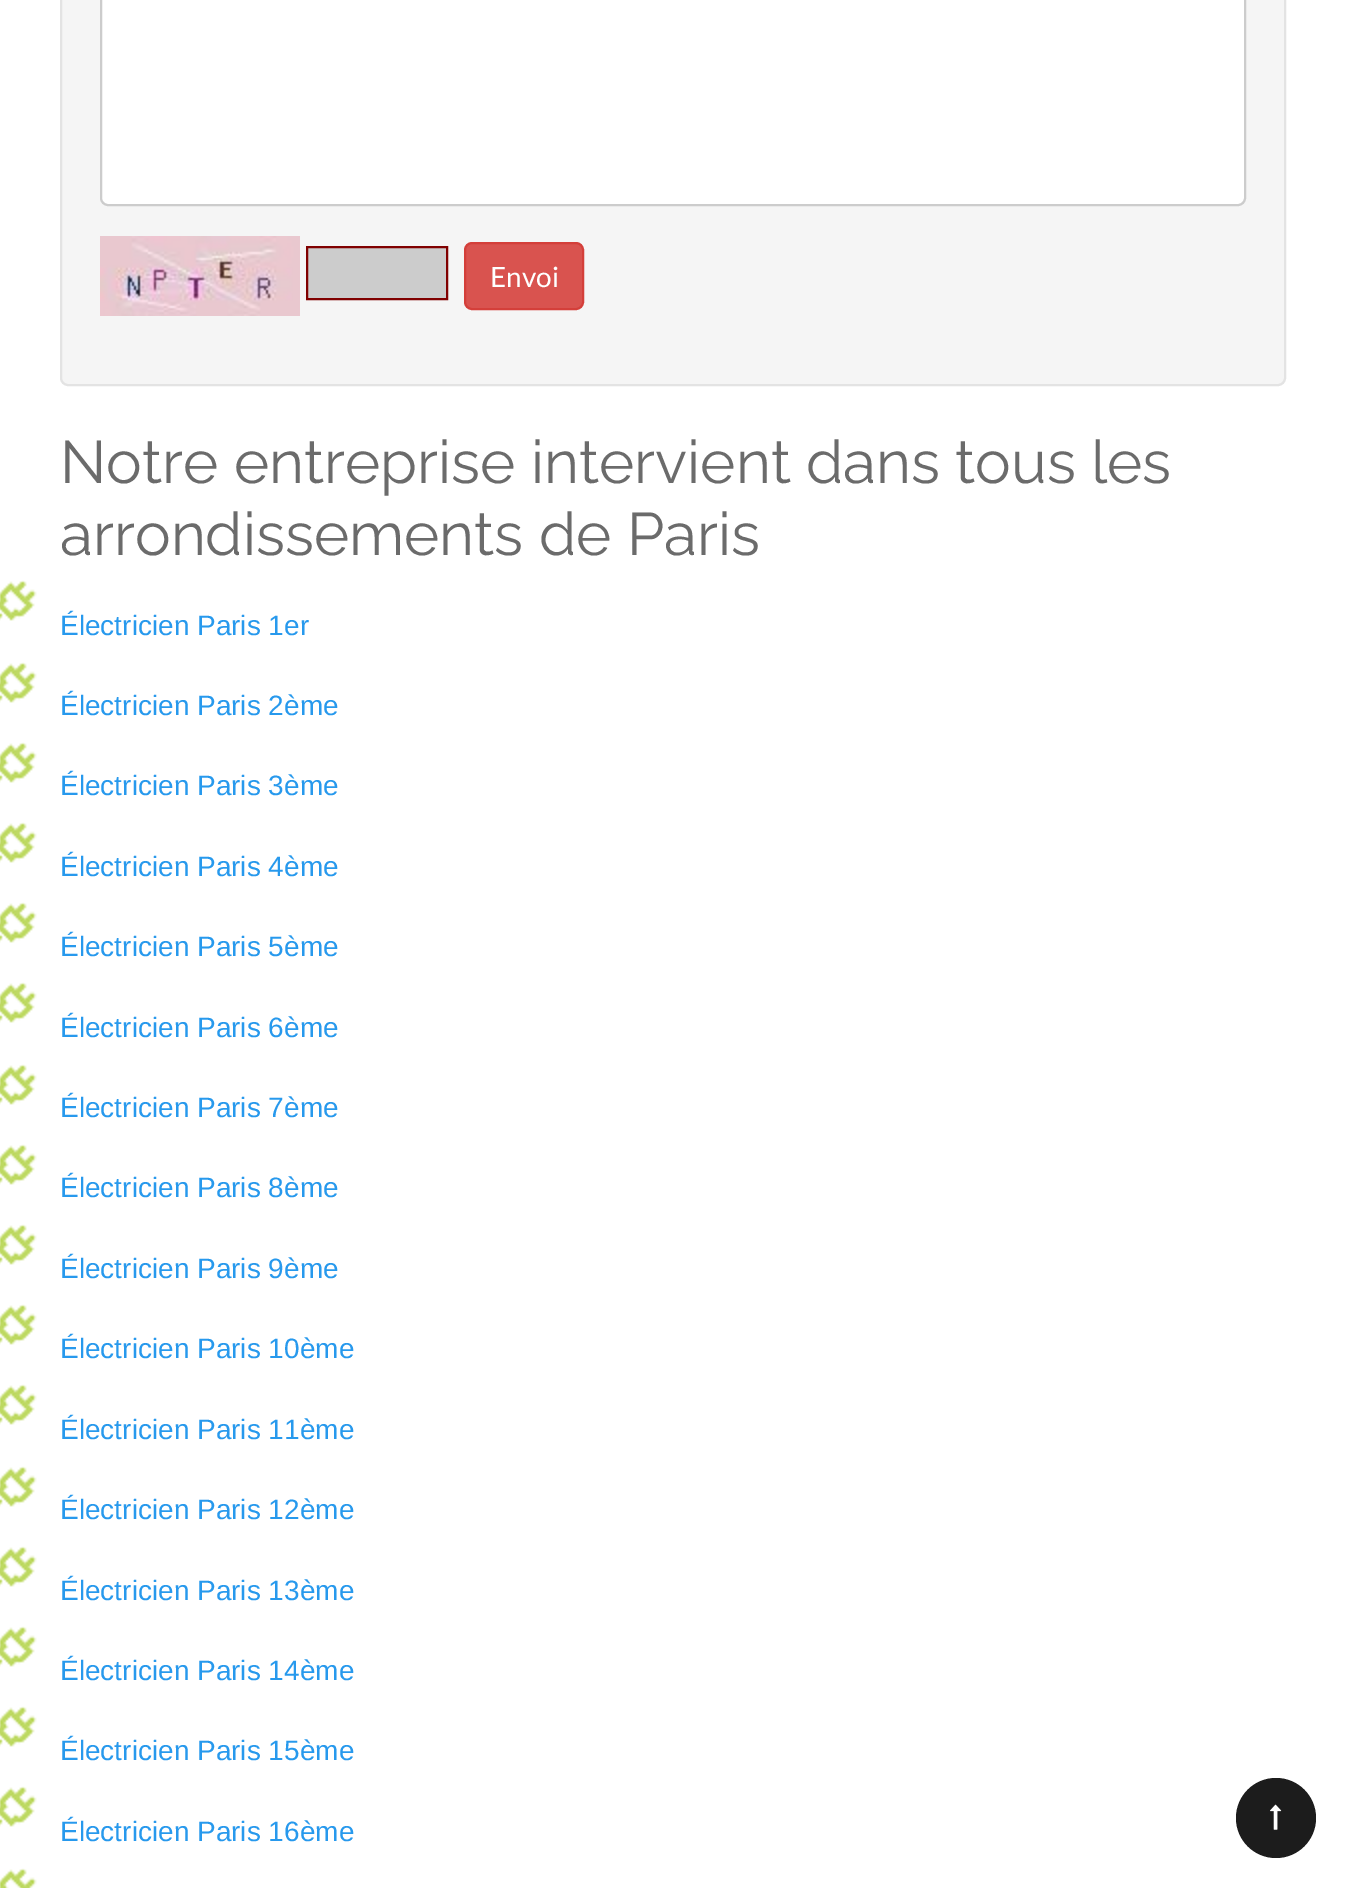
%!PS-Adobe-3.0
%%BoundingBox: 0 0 1346 1888
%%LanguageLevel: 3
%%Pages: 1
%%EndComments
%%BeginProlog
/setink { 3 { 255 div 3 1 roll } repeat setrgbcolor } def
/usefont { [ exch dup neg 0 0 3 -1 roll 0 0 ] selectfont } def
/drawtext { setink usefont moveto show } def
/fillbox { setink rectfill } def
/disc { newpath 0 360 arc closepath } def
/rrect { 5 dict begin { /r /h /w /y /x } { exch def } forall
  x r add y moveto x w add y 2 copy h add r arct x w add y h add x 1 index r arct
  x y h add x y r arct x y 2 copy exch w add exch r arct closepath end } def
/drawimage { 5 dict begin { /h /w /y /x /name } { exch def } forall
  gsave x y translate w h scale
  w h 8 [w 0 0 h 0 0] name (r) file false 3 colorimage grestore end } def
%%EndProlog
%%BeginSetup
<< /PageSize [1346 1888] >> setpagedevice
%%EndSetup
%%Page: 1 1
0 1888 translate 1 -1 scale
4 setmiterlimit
0 0 1346 1888 255 255 255 fillbox
245 245 245 setink
61 -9 1224 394 7 rrect gsave fill grestore
227 227 227 setink
2 setlinewidth
stroke
255 255 255 setink
101 -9 1144 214 7 rrect gsave fill grestore
204 204 204 setink
stroke
(assets/img1.rgb) 100 236 200 80 drawimage
307 247 moveto 447 247 lineto 447 299 lineto 307 299 lineto closepath gsave fill grestore
128 0 0 setink
stroke
217 83 79 setink
465 243 118 66 7 rrect gsave fill grestore
212 63 58 setink
stroke
(Envoi) 490 287 /Lato-Regular 28 255 255 255 drawtext
(Notre entreprise intervient dans tous les) 60 483 /Raleway-Regular 60 107 107 107 drawtext
(arrondissements de Paris) 60 555 /Raleway-Regular 60 107 107 107 drawtext
(assets/img2.rgb) 0 580 37 41 drawimage
(Électricien Paris 1er) 60 635 /LiberationSans-Regular 28 39 153 237 drawtext
(assets/img2.rgb) 0 662 37 41 drawimage
(Électricien Paris 2ème) 60 715 /LiberationSans-Regular 28 39 153 237 drawtext
(assets/img2.rgb) 0 742 37 41 drawimage
(Électricien Paris 3ème) 60 795 /LiberationSans-Regular 28 39 153 237 drawtext
(assets/img2.rgb) 0 822 37 41 drawimage
(Électricien Paris 4ème) 60 876 /LiberationSans-Regular 28 39 153 237 drawtext
(assets/img2.rgb) 0 902 37 41 drawimage
(Électricien Paris 5ème) 60 956 /LiberationSans-Regular 28 39 153 237 drawtext
(assets/img2.rgb) 0 982 37 41 drawimage
(Électricien Paris 6ème) 60 1037 /LiberationSans-Regular 28 39 153 237 drawtext
(assets/img2.rgb) 0 1064 37 41 drawimage
(Électricien Paris 7ème) 60 1117 /LiberationSans-Regular 28 39 153 237 drawtext
(assets/img2.rgb) 0 1144 37 41 drawimage
(Électricien Paris 8ème) 60 1197 /LiberationSans-Regular 28 39 153 237 drawtext
(assets/img2.rgb) 0 1224 37 41 drawimage
(Électricien Paris 9ème) 60 1278 /LiberationSans-Regular 28 39 153 237 drawtext
(assets/img2.rgb) 0 1304 37 41 drawimage
(Électricien Paris 10ème) 60 1358 /LiberationSans-Regular 28 39 153 237 drawtext
(assets/img2.rgb) 0 1384 37 41 drawimage
(Électricien Paris 11ème) 60 1439 /LiberationSans-Regular 28 39 153 237 drawtext
(assets/img2.rgb) 0 1466 37 41 drawimage
(Électricien Paris 12ème) 60 1519 /LiberationSans-Regular 28 39 153 237 drawtext
(assets/img2.rgb) 0 1546 37 41 drawimage
(Électricien Paris 13ème) 60 1600 /LiberationSans-Regular 28 39 153 237 drawtext
(assets/img2.rgb) 0 1626 37 41 drawimage
(Électricien Paris 14ème) 60 1680 /LiberationSans-Regular 28 39 153 237 drawtext
(assets/img2.rgb) 0 1706 37 41 drawimage
(Électricien Paris 15ème) 60 1760 /LiberationSans-Regular 28 39 153 237 drawtext
(assets/img2.rgb) 0 1786 37 41 drawimage
(Électricien Paris 16ème) 60 1841 /LiberationSans-Regular 28 39 153 237 drawtext
(assets/img3.rgb) 0 1868 37 20 drawimage
28 28 28 setink
1276 1818 40 disc fill
(assets/img4.rgb) 1270 1804 12 26 drawimage
showpage
%%EOF
